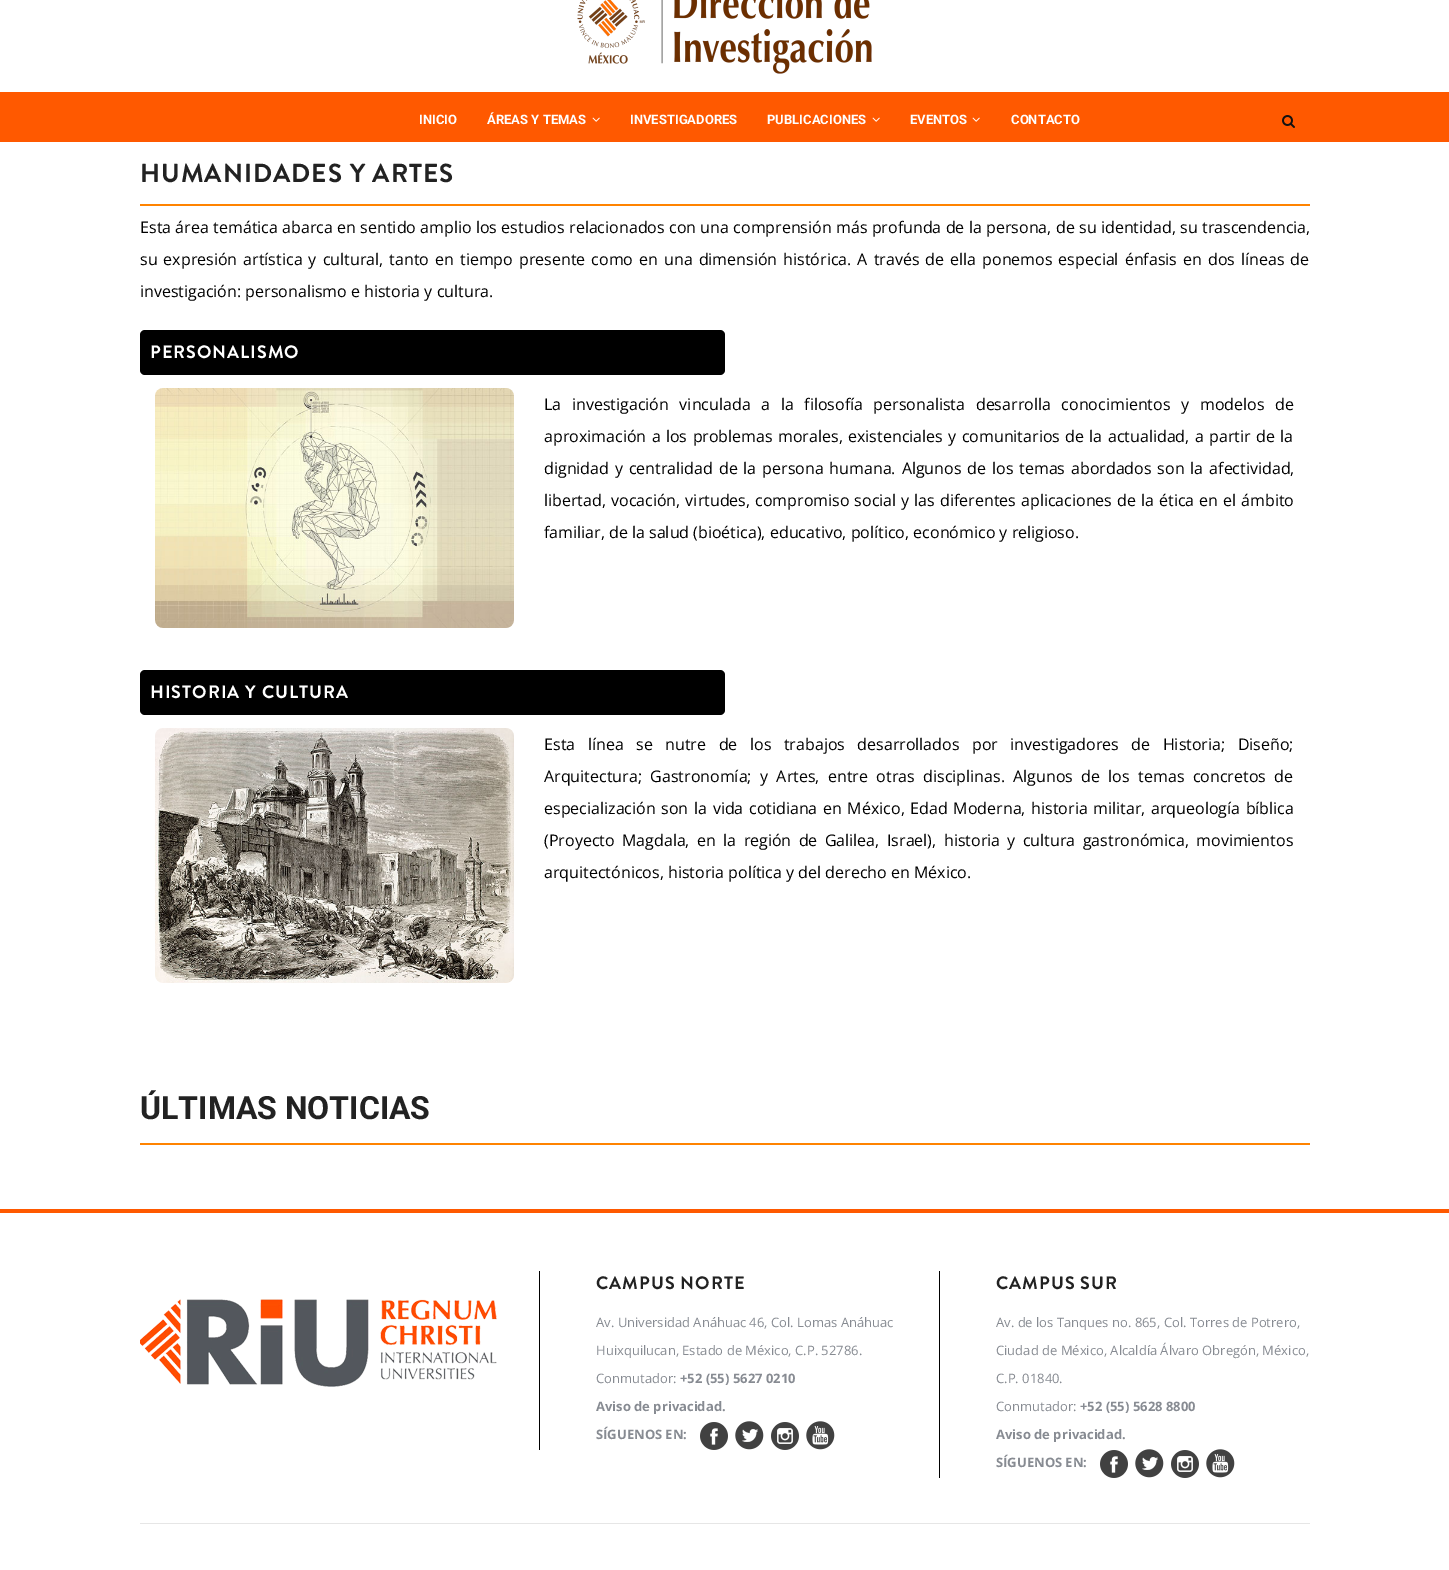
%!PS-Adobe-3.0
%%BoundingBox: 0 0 1449 1570
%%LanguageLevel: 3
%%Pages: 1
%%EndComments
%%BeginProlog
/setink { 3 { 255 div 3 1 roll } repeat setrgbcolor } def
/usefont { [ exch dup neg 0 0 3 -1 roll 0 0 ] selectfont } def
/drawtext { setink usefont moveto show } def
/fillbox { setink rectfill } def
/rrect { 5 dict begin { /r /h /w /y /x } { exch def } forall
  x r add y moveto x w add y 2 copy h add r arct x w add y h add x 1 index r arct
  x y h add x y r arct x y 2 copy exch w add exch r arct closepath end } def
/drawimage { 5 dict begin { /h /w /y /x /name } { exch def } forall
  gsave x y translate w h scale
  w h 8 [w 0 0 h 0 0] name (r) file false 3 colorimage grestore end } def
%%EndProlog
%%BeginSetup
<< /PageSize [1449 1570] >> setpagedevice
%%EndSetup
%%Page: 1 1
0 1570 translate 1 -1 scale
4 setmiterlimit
0 0 1449 1570 255 255 255 fillbox
(assets/img1.rgb) 577 0 295 74 drawimage
0 92 1449 50 255 89 0 fillbox
(INICIO) 419 124 /Roboto-Bold 13 255 255 255 drawtext
(ÁREAS Y TEMAS) 487 124 /Roboto-Bold 13 255 255 255 drawtext
(assets/img2.rgb) 592 117 8 5 drawimage
(INVESTIGADORES) 630 124 /Roboto-Bold 13 255 255 255 drawtext
(PUBLICACIONES) 767 124 /Roboto-Bold 13 255 255 255 drawtext
(assets/img2.rgb) 872 117 8 5 drawimage
(EVENTOS) 910 124 /Roboto-Bold 13 255 255 255 drawtext
(assets/img2.rgb) 972 117 8 5 drawimage
(CONTACTO) 1011 124 /Roboto-Bold 13 255 255 255 drawtext
(assets/img3.rgb) 1282 115 13 13 drawimage
/BrandonGrotesque-Bold 26 usefont
34 34 34 setink
140 182 moveto 1 0 (HUMANIDADES Y ARTES) ashow
140 204 1170 2 255 131 0 fillbox
/OpenSans-Regular 16 usefont
0 0 0 setink
140 233 moveto 0.2 0 32 (Esta área temática abarca en sentido amplio los estudios relacionados con una comprensión más profunda de la persona, de su identidad, su trascendencia,) widthshow
140 265 moveto 1.9 0 32 (su expresión artística y cultural, tanto en tiempo presente como en una dimensión histórica. A través de ella ponemos especial énfasis en dos líneas de) widthshow
(investigación: personalismo e historia y cultura.) 140 297 /OpenSans-Regular 16 0 0 0 drawtext
140 330 585 45 5 rrect fill
/BrandonGrotesque-Bold 18 usefont
255 255 255 setink
150 358 moveto 1 0 (PERSONALISMO) ashow
(assets/img4.rgb) 155 388 359 240 drawimage
/OpenSans-Regular 16 usefont
0 0 0 setink
544 410 moveto 6.5 0 32 (La investigación vinculada a la filosofía personalista desarrolla conocimientos y modelos de) widthshow
544 442 moveto 1.25 0 32 (aproximación a los problemas morales, existenciales y comunitarios de la actualidad, a partir de la) widthshow
544 474 moveto 1.75 0 32 (dignidad y centralidad de la persona humana. Algunos de los temas abordados son la afectividad,) widthshow
544 506 moveto 0.9 0 32 (libertad, vocación, virtudes, compromiso social y las diferentes aplicaciones de la ética en el ámbito) widthshow
(familiar, de la salud \(bioética\), educativo, político, económico y religioso.) 544 538 /OpenSans-Regular 16 0 0 0 drawtext
140 670 585 45 5 rrect fill
/BrandonGrotesque-Bold 18 usefont
255 255 255 setink
150 698 moveto 1 0 (HISTORIA Y CULTURA) ashow
(assets/img5.rgb) 155 728 359 255 drawimage
/OpenSans-Regular 16 usefont
0 0 0 setink
544 750 moveto 8.4 0 32 (Esta línea se nutre de los trabajos desarrollados por investigadores de Historia; Diseño;) widthshow
544 782 moveto 4.25 0 32 (Arquitectura; Gastronomía; y Artes, entre otras disciplinas. Algunos de los temas concretos de) widthshow
544 814 moveto 1.5 0 32 (especialización son la vida cotidiana en México, Edad Moderna, historia militar, arqueología bíblica) widthshow
544 846 moveto 3.25 0 32 (\(Proyecto Magdala, en la región de Galilea, Israel\), historia y cultura gastronómica, movimientos) widthshow
(arquitectónicos, historia política y del derecho en México.) 544 878 /OpenSans-Regular 16 0 0 0 drawtext
(ÚLTIMAS NOTICIAS) 140 1119 /Roboto-Bold 32 34 34 34 drawtext
140 1143 1170 2 255 131 0 fillbox
0 1209 1449 4 255 89 0 fillbox
(assets/img6.rgb) 140 1299 357 88 drawimage
539 1271 1 179 0 0 0 fillbox
/BrandonGrotesque-Bold 18 usefont
34 34 34 setink
596 1289 moveto 1 0 (CAMPUS NORTE) ashow
(Av. Universidad Anáhuac 46, Col. Lomas Anáhuac) 596 1327 /OpenSans-Regular 13 135 139 146 drawtext
(Huixquilucan, Estado de México, C.P. 52786.) 596 1355 /OpenSans-Regular 13 135 139 146 drawtext
(Conmutador:) 596 1383 /OpenSans-Regular 13 135 139 146 drawtext
(+52 \(55\) 5627 0210) 680 1383 /OpenSans-Bold 13 135 139 146 drawtext
(Aviso de privacidad.) 596 1411 /OpenSans-Bold 13 135 139 146 drawtext
(SÍGUENOS EN:) 596 1439 /OpenSans-Bold 13 135 139 146 drawtext
(assets/img7.rgb) 700 1422 28 28 drawimage
(assets/img8.rgb) 735 1421 29 29 drawimage
(assets/img9.rgb) 771 1422 28 28 drawimage
(assets/img10.rgb) 806 1421 29 29 drawimage
939 1271 1 207 0 0 0 fillbox
/BrandonGrotesque-Bold 18 usefont
34 34 34 setink
996 1289 moveto 1 0 (CAMPUS SUR) ashow
(Av. de los Tanques no. 865, Col. Torres de Potrero,) 996 1327 /OpenSans-Regular 13 135 139 146 drawtext
(Ciudad de México, Alcaldía Álvaro Obregón, México,) 996 1355 /OpenSans-Regular 13 135 139 146 drawtext
(C.P. 01840.) 996 1383 /OpenSans-Regular 13 135 139 146 drawtext
(Conmutador:) 996 1411 /OpenSans-Regular 13 135 139 146 drawtext
(+52 \(55\) 5628 8800) 1080 1411 /OpenSans-Bold 13 135 139 146 drawtext
(Aviso de privacidad.) 996 1439 /OpenSans-Bold 13 135 139 146 drawtext
(SÍGUENOS EN:) 996 1467 /OpenSans-Bold 13 135 139 146 drawtext
(assets/img7.rgb) 1100 1450 28 28 drawimage
(assets/img8.rgb) 1135 1449 29 29 drawimage
(assets/img9.rgb) 1171 1450 28 28 drawimage
(assets/img10.rgb) 1206 1449 29 29 drawimage
140 1523 1170 1 230 230 230 fillbox
showpage
%%EOF
